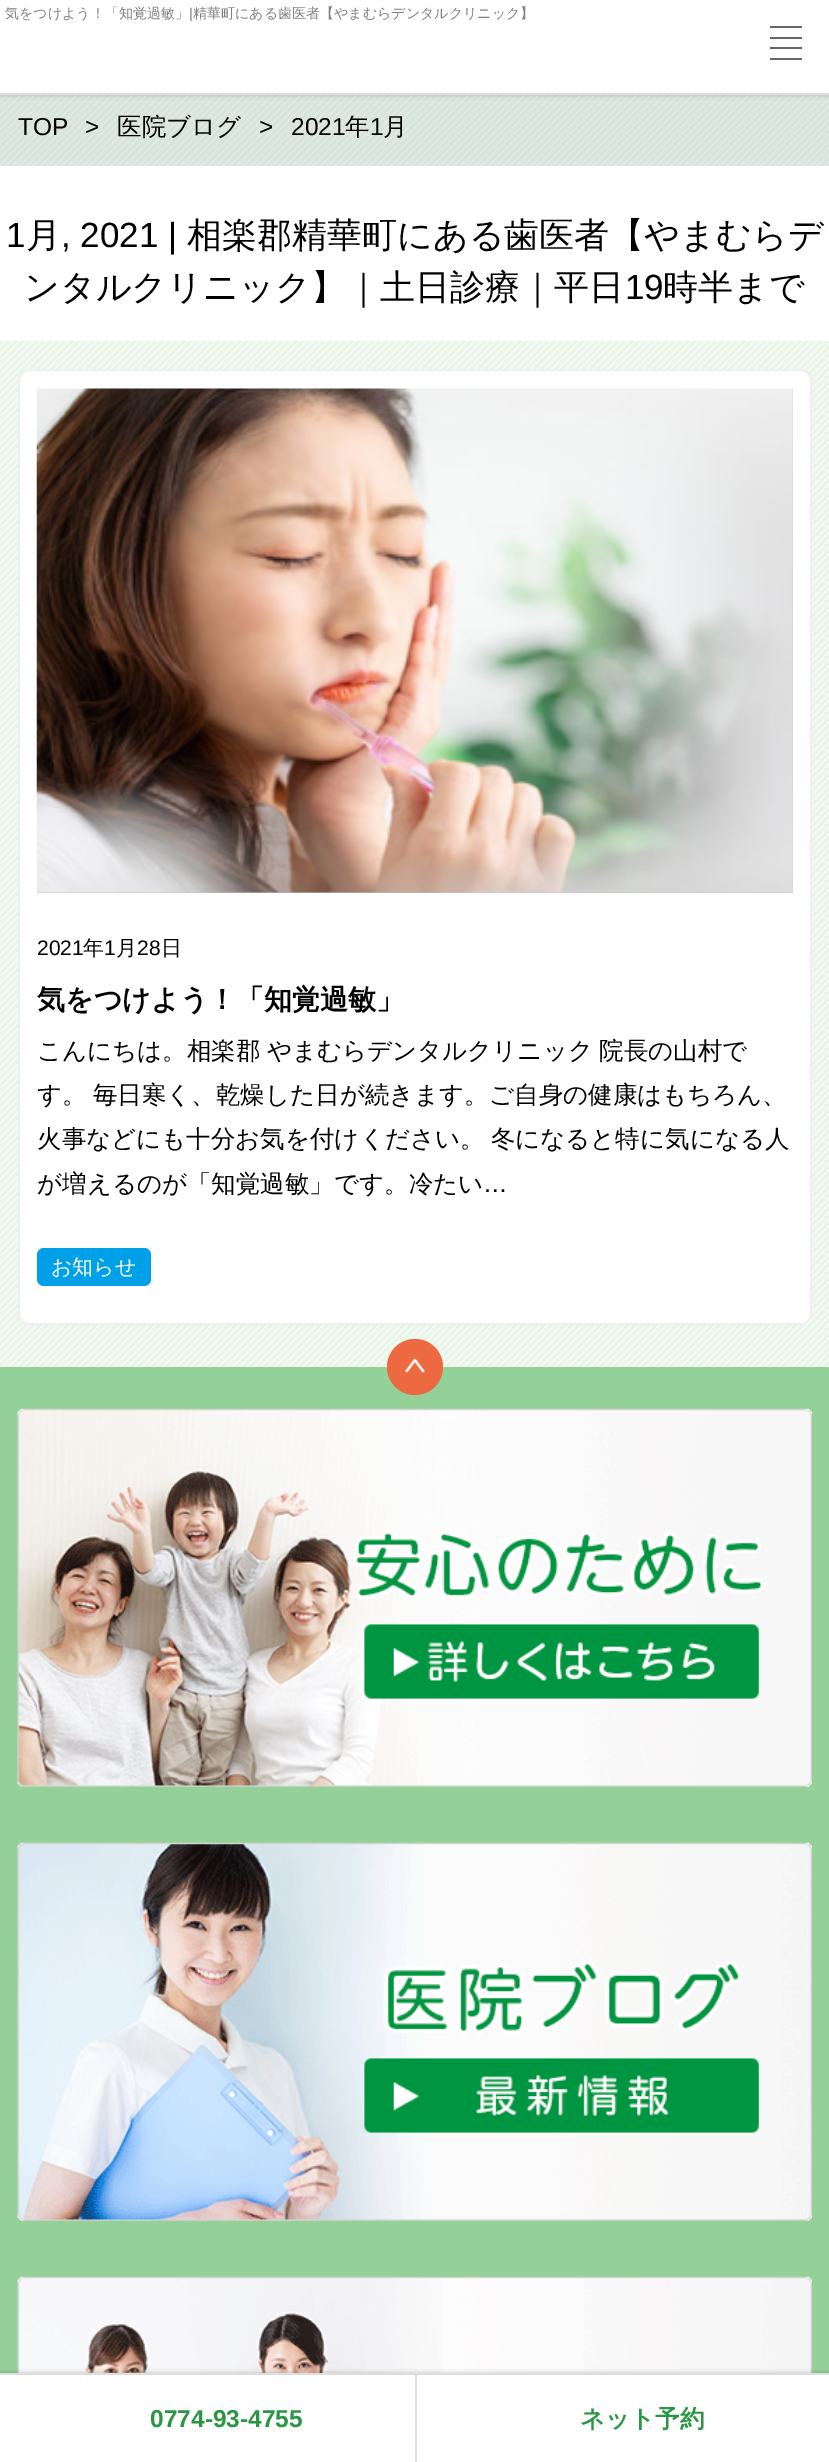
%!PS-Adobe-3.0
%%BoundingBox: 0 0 829 2462
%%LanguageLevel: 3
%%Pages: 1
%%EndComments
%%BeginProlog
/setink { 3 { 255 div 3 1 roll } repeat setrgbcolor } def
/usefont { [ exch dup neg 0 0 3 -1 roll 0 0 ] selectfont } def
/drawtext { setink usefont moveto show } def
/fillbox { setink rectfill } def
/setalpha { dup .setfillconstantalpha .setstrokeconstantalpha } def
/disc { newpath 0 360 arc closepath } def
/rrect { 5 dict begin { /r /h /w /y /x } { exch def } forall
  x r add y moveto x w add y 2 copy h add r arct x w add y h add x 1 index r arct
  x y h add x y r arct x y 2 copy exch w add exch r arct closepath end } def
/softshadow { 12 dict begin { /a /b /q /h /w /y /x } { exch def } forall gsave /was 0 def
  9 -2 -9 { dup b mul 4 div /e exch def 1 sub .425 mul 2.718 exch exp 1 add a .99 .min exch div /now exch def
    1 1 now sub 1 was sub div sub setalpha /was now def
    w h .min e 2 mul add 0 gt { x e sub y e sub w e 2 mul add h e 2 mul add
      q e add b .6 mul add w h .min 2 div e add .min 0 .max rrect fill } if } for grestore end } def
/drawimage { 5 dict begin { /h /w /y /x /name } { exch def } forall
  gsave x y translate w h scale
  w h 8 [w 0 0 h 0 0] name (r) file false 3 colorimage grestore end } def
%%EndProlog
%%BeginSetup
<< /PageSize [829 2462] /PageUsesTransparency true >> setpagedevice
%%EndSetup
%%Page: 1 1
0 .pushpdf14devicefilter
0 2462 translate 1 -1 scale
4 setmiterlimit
0 0 829 2462 231 244 230 fillbox
(assets/img1.rgb) 0 95 829 1272 drawimage
0.2 setalpha
0 95 829 71 145 163 174 fillbox
1 setalpha
0 0 0 setink
0 0 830 95 0 2.5 0.2 softshadow
0 0 829 93 255 255 255 fillbox
0 93 829 2 221 221 221 fillbox
(気をつけよう！「知覚過敏」) 5 18 /WenQuanYiZenHei-Medium 14 128 128 128 drawtext
(|) 189 18 /LiberationSans-Regular 14 128 128 128 drawtext
(精華町にある歯医者【やまむらデンタルクリニック】) 193 18 /WenQuanYiZenHei-Medium 14 128 128 128 drawtext
770 37 32 2 102 102 102 fillbox
770 47 32 2 102 102 102 fillbox
770 26 32 2 102 102 102 fillbox
770 58 32 2 102 102 102 fillbox
(TOP) 18 135 /LiberationSans-Regular 24.5 0 0 0 drawtext
(>) 85 135 /LiberationSans-Regular 24.5 0 0 0 drawtext
(医院ブログ) 117 135 /WenQuanYiZenHei-Medium 24.5 0 0 0 drawtext
(>) 259 135 /LiberationSans-Regular 24.5 0 0 0 drawtext
(2021) 291 135 /LiberationSans-Regular 24.5 0 0 0 drawtext
(年) 345 135 /WenQuanYiZenHei-Medium 24.5 0 0 0 drawtext
(1) 370 135 /LiberationSans-Regular 24.5 0 0 0 drawtext
(月) 383 135 /WenQuanYiZenHei-Medium 24.5 0 0 0 drawtext
0 166 829 175 255 255 255 fillbox
(1) 6 247 /LiberationSans-Regular 35 0 0 0 drawtext
(月) 26 247 /WenQuanYiZenHei-Medium 35 0 0 0 drawtext
(, 2021 |) 61 247 /LiberationSans-Regular 35 0 0 0 drawtext
(相楽郡精華町にある歯医者【やまむらデ) 187 247 /WenQuanYiZenHei-Medium 35 0 0 0 drawtext
(ンタルクリニック】｜土日診療｜平日) 24 299 /WenQuanYiZenHei-Medium 35 0 0 0 drawtext
(19) 625 299 /LiberationSans-Regular 35 0 0 0 drawtext
(時半まで) 663 299 /WenQuanYiZenHei-Medium 35 0 0 0 drawtext
255 255 255 setink
19 370 792 954 10 rrect gsave fill grestore
236 240 241 setink
2 setlinewidth
stroke
37 389 756 504 198 198 198 fillbox
(assets/img2.rgb) 36 388 757 505 drawimage
(2021) 37 955 /LiberationSans-Regular 21 0 0 0 drawtext
(年) 83 955 /WenQuanYiZenHei-Medium 21 0 0 0 drawtext
(1) 104 955 /LiberationSans-Regular 21 0 0 0 drawtext
(月) 116 955 /WenQuanYiZenHei-Medium 21 0 0 0 drawtext
(28) 137 955 /LiberationSans-Regular 21 0 0 0 drawtext
(日) 161 955 /WenQuanYiZenHei-Medium 21 0 0 0 drawtext
(気をつけよう！「知覚過敏」) 37 1009 /WenQuanYiZenHei-Bold 28 0 0 0 drawtext
/WenQuanYiZenHei-Medium 24.5 usefont
37 1059 moveto -1 0 32 (こんにちは。相楽郡 やまむらデンタルクリニック 院長の山村で) widthshow
37 1103 moveto -1 0 32 (す。 毎日寒く、乾燥した日が続きます。ご自身の健康はもちろん、) widthshow
37 1147 moveto -1 0 32 (火事などにも十分お気を付けください。 冬になると特に気になる人) widthshow
(が増えるのが「知覚過敏」です。冷たい) 37 1192 /WenQuanYiZenHei-Medium 24.5 0 0 0 drawtext
(…) 483 1192 /LiberationSans-Regular 24.5 0 0 0 drawtext
0 160 232 setink
37 1248 114 38 7 rrect fill
(お知らせ) 51 1274 /WenQuanYiZenHei-Medium 21 255 255 255 drawtext
0 1367 829 1006 148 209 152 fillbox
236 105 65 setink
415 1367 28 disc fill
(assets/img3.rgb) 405 1358 20 15 drawimage
(assets/img4.rgb) 17 1408 795 379 drawimage
(assets/img5.rgb) 17 1842 795 379 drawimage
(assets/img6.rgb) 17 2276 795 97 drawimage
0 0 0 setink
0 2373 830 89 0 2.5 0.2 softshadow
0 2375 829 87 255 255 255 fillbox
0 2373 829 2 221 221 221 fillbox
415 2375 2 87 224 224 224 fillbox
(0774-93-4755) 150 2427 /LiberationSans-Bold 24.5 41 150 67 drawtext
(ネット予約) 580 2427 /WenQuanYiZenHei-Bold 24.5 41 150 67 drawtext
.poppdf14devicefilter showpage
%%EOF
